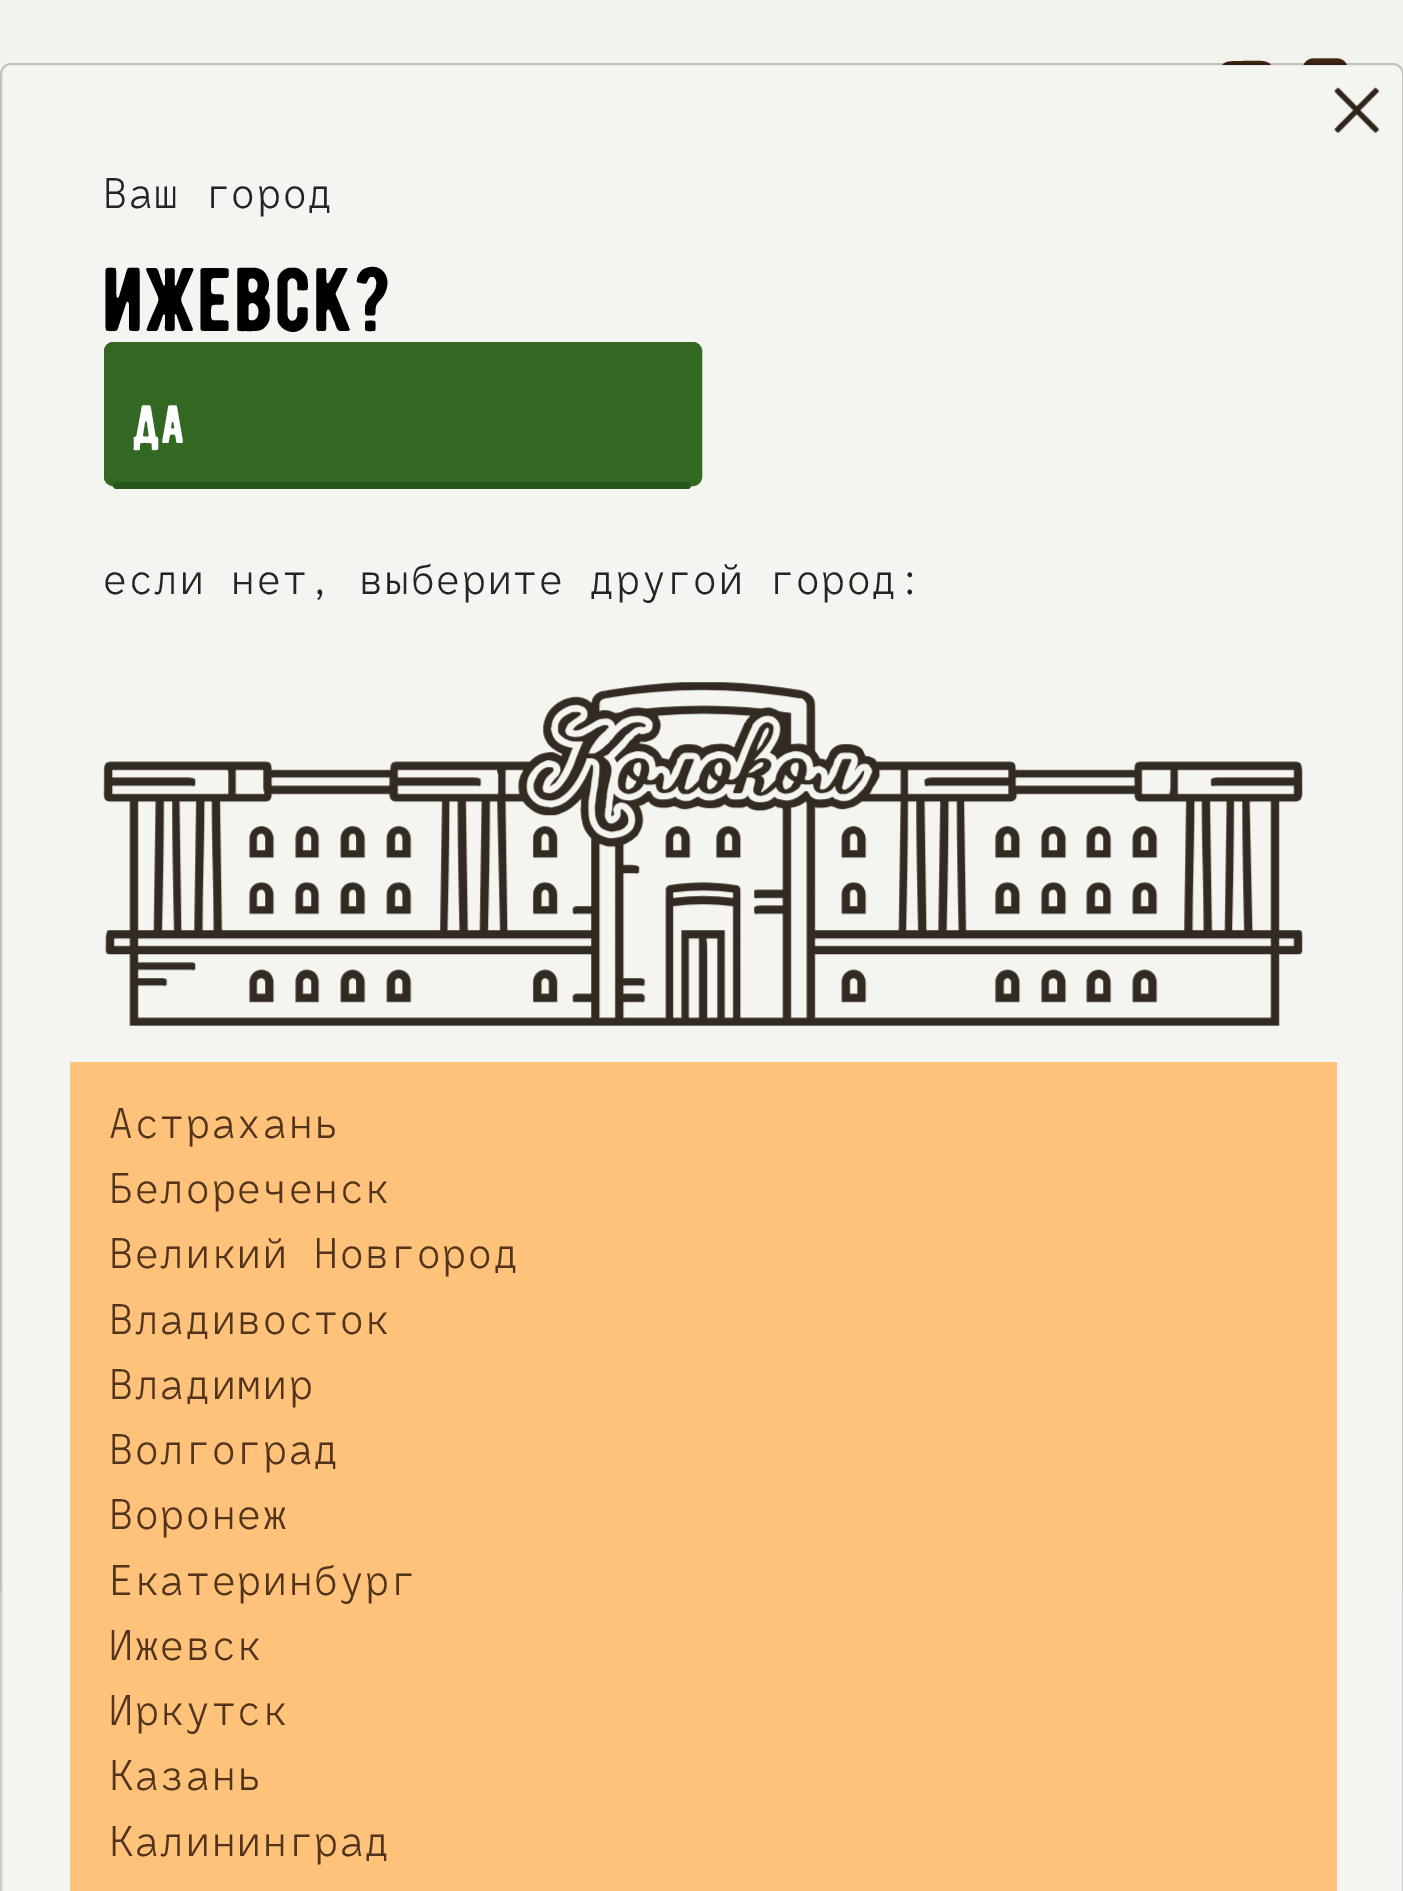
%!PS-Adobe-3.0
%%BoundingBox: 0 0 1403 1891
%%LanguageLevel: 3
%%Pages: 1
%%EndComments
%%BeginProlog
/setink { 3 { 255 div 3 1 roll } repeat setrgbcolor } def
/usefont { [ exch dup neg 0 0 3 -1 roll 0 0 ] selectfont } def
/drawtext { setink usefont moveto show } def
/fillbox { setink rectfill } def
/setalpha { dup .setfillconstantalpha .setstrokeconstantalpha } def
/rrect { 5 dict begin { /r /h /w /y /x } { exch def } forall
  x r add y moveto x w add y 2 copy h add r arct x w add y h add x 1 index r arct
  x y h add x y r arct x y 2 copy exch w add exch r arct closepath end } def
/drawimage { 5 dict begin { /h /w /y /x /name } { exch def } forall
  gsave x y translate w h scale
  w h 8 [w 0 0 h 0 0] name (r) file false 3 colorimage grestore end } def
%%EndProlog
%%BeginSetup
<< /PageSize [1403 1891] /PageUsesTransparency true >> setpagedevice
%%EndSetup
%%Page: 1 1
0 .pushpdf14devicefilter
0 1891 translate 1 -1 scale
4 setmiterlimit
0 0 1403 1891 241 243 236 fillbox
64 38 19 setink
4.5 setlinewidth
1 setlinecap
1 setlinejoin
1270 68.5 moveto 1268.5 62 1259.5 63.5 1254.5 63 curveto 1232 63.5 lineto 1225.5 64 1223 65 1222.5 71.5 curveto 1222 85 lineto 1222.5 93.5 1223 96.5 1232 97.5 curveto 1249 98 lineto 1261 97.5 lineto 1268.5 97 1270 95 1271 88 curveto 1271.5 81.5 1271.5 75 1270 68.5 curveto closepath stroke
(assets/img1.rgb) 1303 58 44 7 drawimage
255 255 255 setink
7 setlinewidth
0 setlinecap
0 setlinejoin
3.5 1594.5 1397 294 rectstroke
244 245 240 setink
11 65 moveto 1393 65 lineto 1398 65 1402 69 1402 74 curveto 1402 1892 lineto 2 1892 lineto 2 74 lineto 2 69 6 65 11 65 curveto closepath fill
0.2 setalpha
0 0 0 setink
2 setlinewidth
1 64 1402 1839 10 rrect stroke
1 setalpha
(assets/img2.rgb) 1334 87 46 46 drawimage
(Ваш город) 102 208 /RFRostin-Light 42.75 33 37 41 drawtext
(ижевск?) 102 331 /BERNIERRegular-Regular 90 0 0 0 drawtext
50 104 33 setink
105 343 596 142 8 rrect gsave fill grestore
stroke
(да) 132 443 /BERNIERRegular-Regular 54 255 255 255 drawtext
41 86 27 setink
113 482 578 7 3.5 rrect fill
(если нет, выберите другой город:) 102 594 /RFRostin-Light 42.75 33 37 41 drawtext
(assets/img3.rgb) 103 682 1200 344 drawimage
70 1062 1267 829 255 194 123 fillbox
(Астрахань) 108 1138 /RFRostin-Light 42.75 82 51 27 drawtext
(Белореченск) 108 1203 /RFRostin-Light 42.75 82 51 27 drawtext
(Великий Новгород) 108 1268 /RFRostin-Light 42.75 82 51 27 drawtext
(Владивосток) 108 1334 /RFRostin-Light 42.75 82 51 27 drawtext
(Владимир) 108 1399 /RFRostin-Light 42.75 82 51 27 drawtext
(Волгоград) 108 1464 /RFRostin-Light 42.75 82 51 27 drawtext
(Воронеж) 108 1529 /RFRostin-Light 42.75 82 51 27 drawtext
(Екатеринбург) 108 1595 /RFRostin-Light 42.75 82 51 27 drawtext
(Ижевск) 108 1660 /RFRostin-Light 42.75 82 51 27 drawtext
(Иркутск) 108 1725 /RFRostin-Light 42.75 82 51 27 drawtext
(Казань) 108 1790 /RFRostin-Light 42.75 82 51 27 drawtext
(Калининград) 108 1856 /RFRostin-Light 42.75 82 51 27 drawtext
.poppdf14devicefilter showpage
%%EOF
